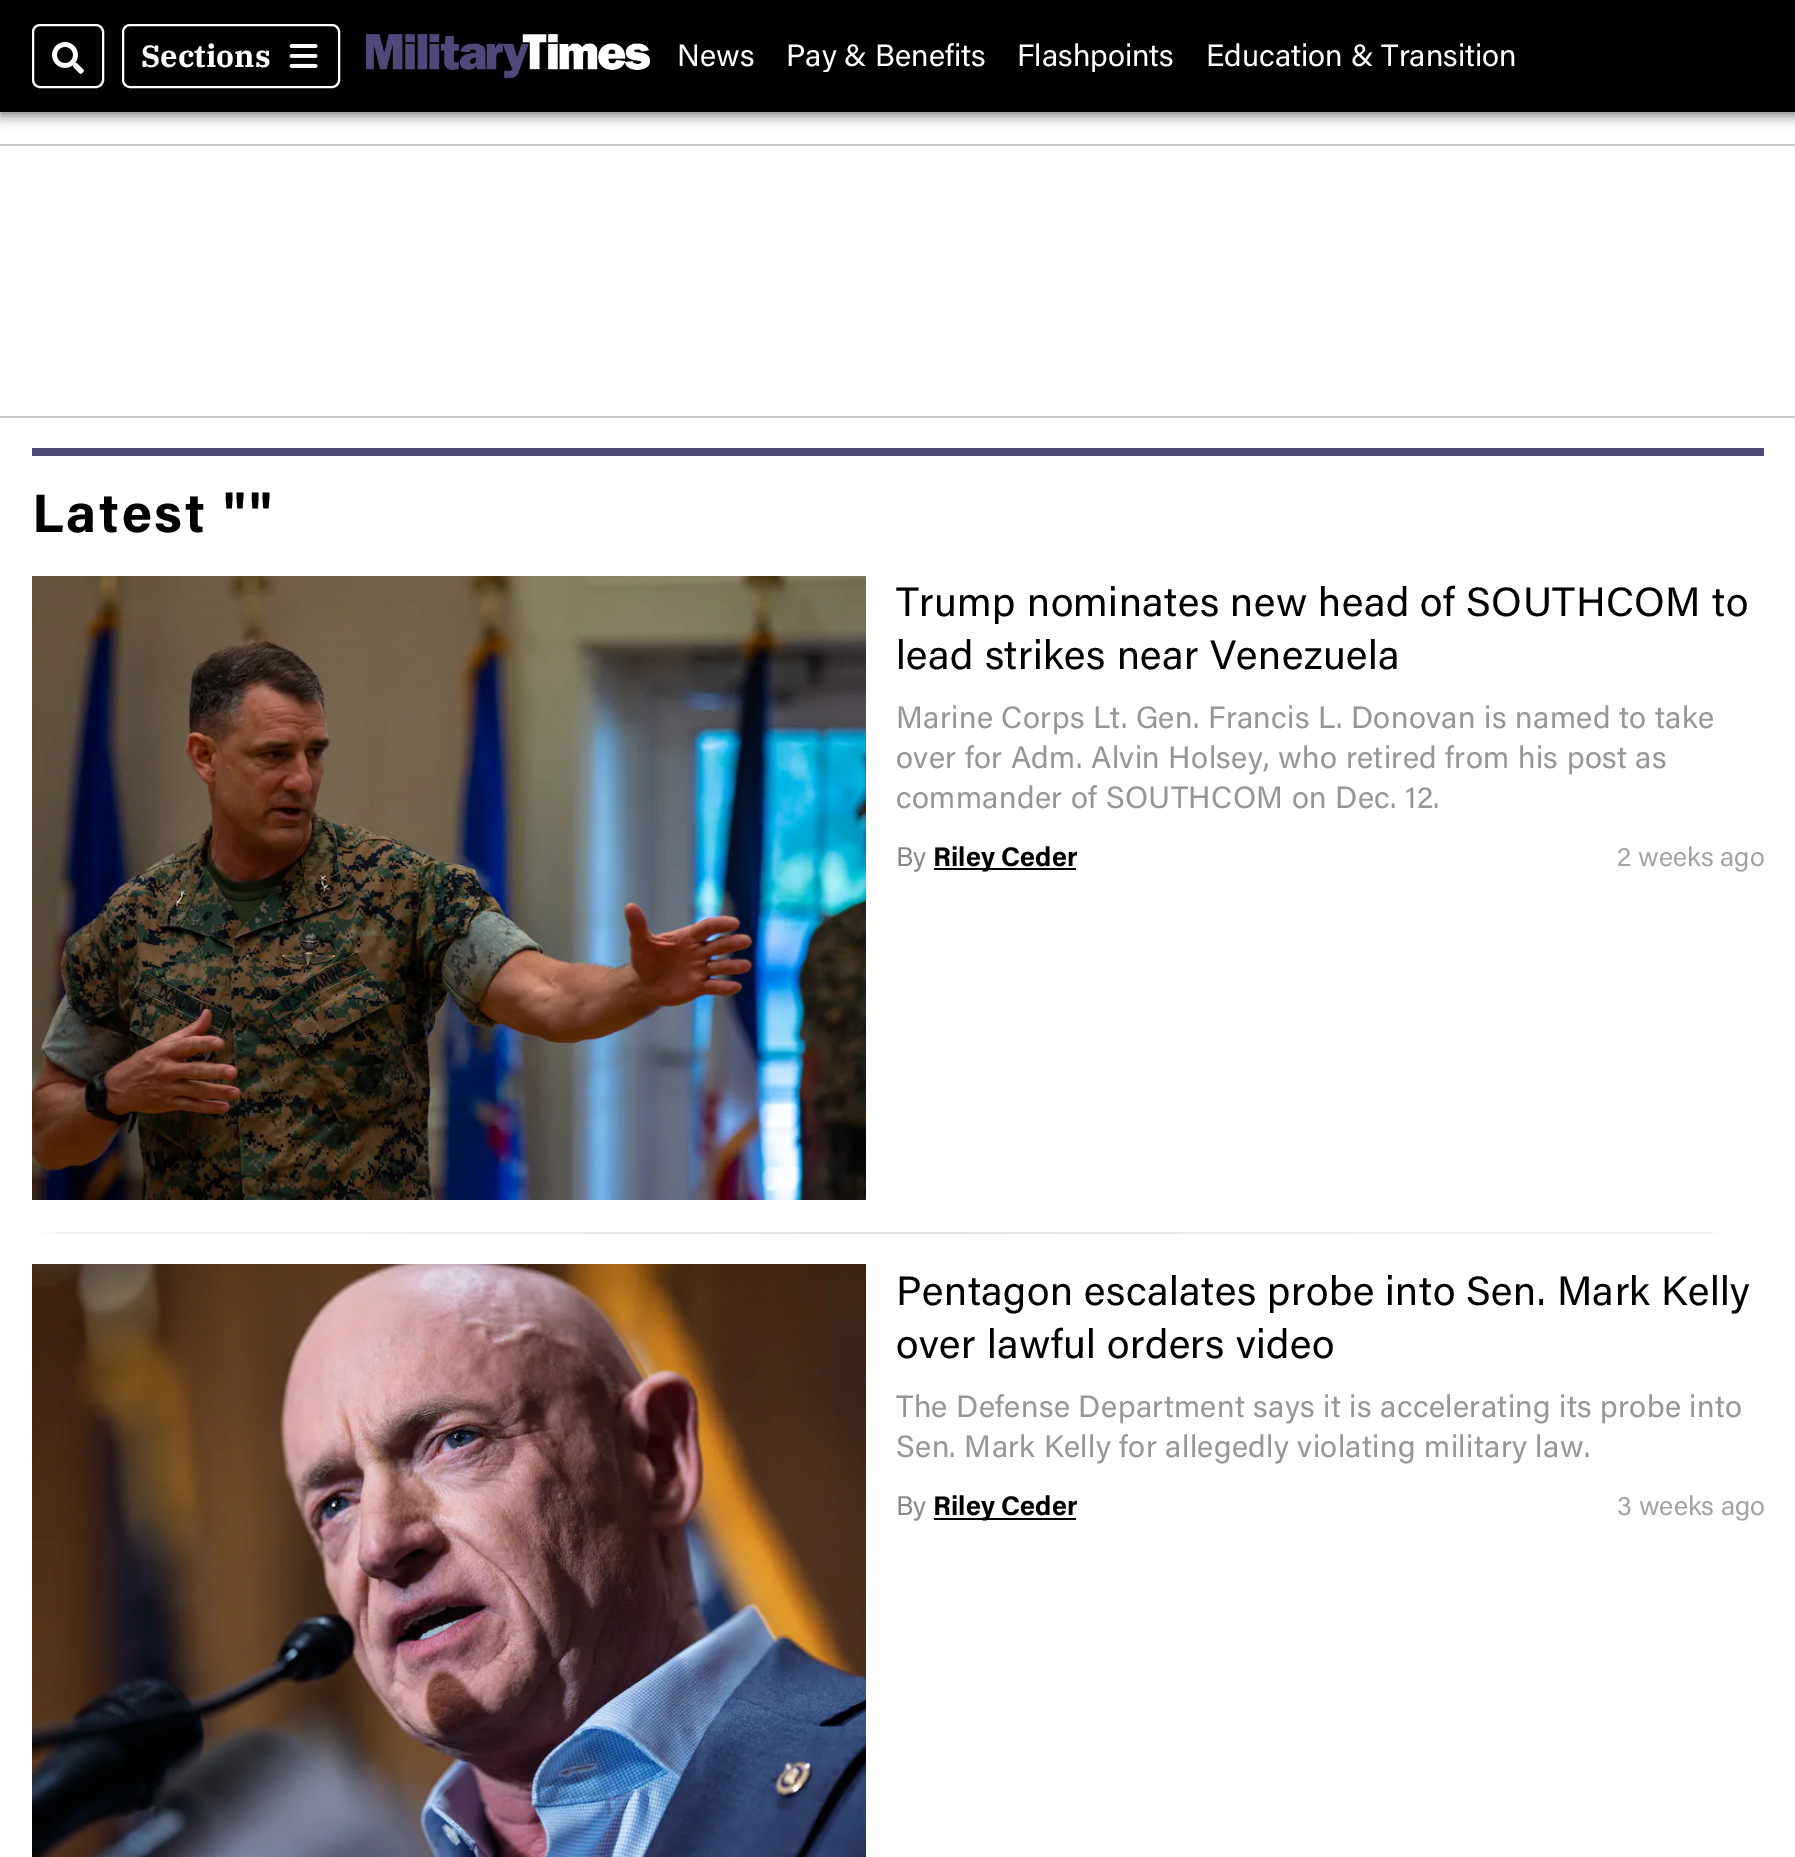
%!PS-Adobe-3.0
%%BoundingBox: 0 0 1795 1857
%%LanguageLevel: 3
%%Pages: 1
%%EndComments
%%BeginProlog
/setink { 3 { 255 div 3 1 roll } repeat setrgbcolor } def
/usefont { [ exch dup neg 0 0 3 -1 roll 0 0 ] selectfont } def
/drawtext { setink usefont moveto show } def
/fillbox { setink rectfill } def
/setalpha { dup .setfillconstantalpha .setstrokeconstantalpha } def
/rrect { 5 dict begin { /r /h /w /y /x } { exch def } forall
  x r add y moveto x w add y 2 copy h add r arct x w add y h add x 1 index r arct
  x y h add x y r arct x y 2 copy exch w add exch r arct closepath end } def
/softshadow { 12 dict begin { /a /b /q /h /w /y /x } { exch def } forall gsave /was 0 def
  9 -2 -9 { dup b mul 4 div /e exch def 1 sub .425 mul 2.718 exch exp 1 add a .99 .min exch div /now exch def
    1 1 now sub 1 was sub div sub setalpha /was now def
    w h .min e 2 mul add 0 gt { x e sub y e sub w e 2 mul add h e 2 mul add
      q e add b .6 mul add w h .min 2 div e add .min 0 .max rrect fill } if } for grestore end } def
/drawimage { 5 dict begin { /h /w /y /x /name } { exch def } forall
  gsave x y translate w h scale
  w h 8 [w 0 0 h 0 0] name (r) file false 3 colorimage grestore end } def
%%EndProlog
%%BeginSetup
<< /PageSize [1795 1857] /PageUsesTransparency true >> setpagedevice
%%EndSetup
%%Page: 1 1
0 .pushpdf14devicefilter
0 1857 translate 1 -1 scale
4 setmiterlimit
0 0 1795 1857 255 255 255 fillbox
0 0 0 setink
0 4 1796 112 0 6 0.5 softshadow
0 0 1795 112 0 0 0 fillbox
255 255 255 setink
2 setlinewidth
33 25 70 62 7 rrect stroke
(assets/img1.rgb) 52 42 32 32 drawimage
123 25 216 62 7 rrect stroke
(Sections) 141 67 /IBMPlexSerif-Bold 30.85 255 255 255 drawtext
(assets/img2.rgb) 289 44 29 24 drawimage
(assets/img3.rgb) 366 34 284 45 drawimage
(News) 677 66 /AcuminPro-Regular 30.85 255 255 255 drawtext
gsave
676 40 1062 32 rectclip
(Pay & Benefits) 786 66 /AcuminPro-Regular 30.85 255 255 255 drawtext
(Flashpoints) 1017 66 /AcuminPro-Regular 30.85 255 255 255 drawtext
grestore
(Education & Transition) 1206 66 /AcuminPro-Regular 30.85 255 255 255 drawtext
0 144 1795 2 201 201 201 fillbox
0 416 1795 2 201 201 201 fillbox
32 448 1732 8 78 74 120 fillbox
/AcuminPro-Bold 54 usefont
0 0 0 setink
32 532 moveto 2.75 0 (Latest "") ashow
(assets/img4.rgb) 32 576 834 624 drawimage
/AcuminPro-Regular 40.8 usefont
896 616 moveto 0.5 0 (Trump nominates new head of SOUTHCOM to) ashow
896 669 moveto 0.5 0 (lead strikes near Venezuela) ashow
/AcuminPro-Regular 30.85 usefont
150 150 150 setink
896 728 moveto 0.4 0 (Marine Corps Lt. Gen. Francis L. Donovan is named to take) ashow
896 768 moveto 0.4 0 (over for Adm. Alvin Holsey, who retired from his post as) ashow
896 808 moveto 0.4 0 (commander of SOUTHCOM on Dec. 12.) ashow
(By) 896 866 /AcuminPro-Regular 27 137 137 137 drawtext
934 868 142 2 0 0 0 fillbox
(Riley Ceder) 933 866 /AcuminPro-Bold 27 0 0 0 drawtext
(2 weeks ago) 1617 866 /AcuminPro-Regular 27 163 163 163 drawtext
gsave 32 1232 moveto 1732 1232 lineto 1732 1234 lineto 32 1234 lineto closepath clip newpath 882 1233 translate 1202 1.4 scale
<< /ShadingType 3 /ColorSpace /DeviceRGB /Coords [0 0 0 0 0 1] /Extend [true true] /Function << /FunctionType 2 /Domain [0 1] /C0 [0.886 0.886 0.886] /C1 [1 1 1] /N 1 >> >> shfill grestore
(assets/img5.rgb) 32 1264 834 593 drawimage
/AcuminPro-Regular 40.8 usefont
0 0 0 setink
896 1305 moveto 0.5 0 (Pentagon escalates probe into Sen. Mark Kelly) ashow
896 1358 moveto 0.5 0 (over lawful orders video) ashow
/AcuminPro-Regular 30.85 usefont
150 150 150 setink
896 1417 moveto -0.1 0 32 0.4 0 (The Defense Department says it is accelerating its probe into) awidthshow
896 1457 moveto 0.4 0 (Sen. Mark Kelly for allegedly violating military law.) ashow
(By) 896 1515 /AcuminPro-Regular 27 137 137 137 drawtext
934 1518 142 2 0 0 0 fillbox
(Riley Ceder) 933 1515 /AcuminPro-Bold 27 0 0 0 drawtext
(3 weeks ago) 1617 1515 /AcuminPro-Regular 27 163 163 163 drawtext
.poppdf14devicefilter showpage
%%EOF
